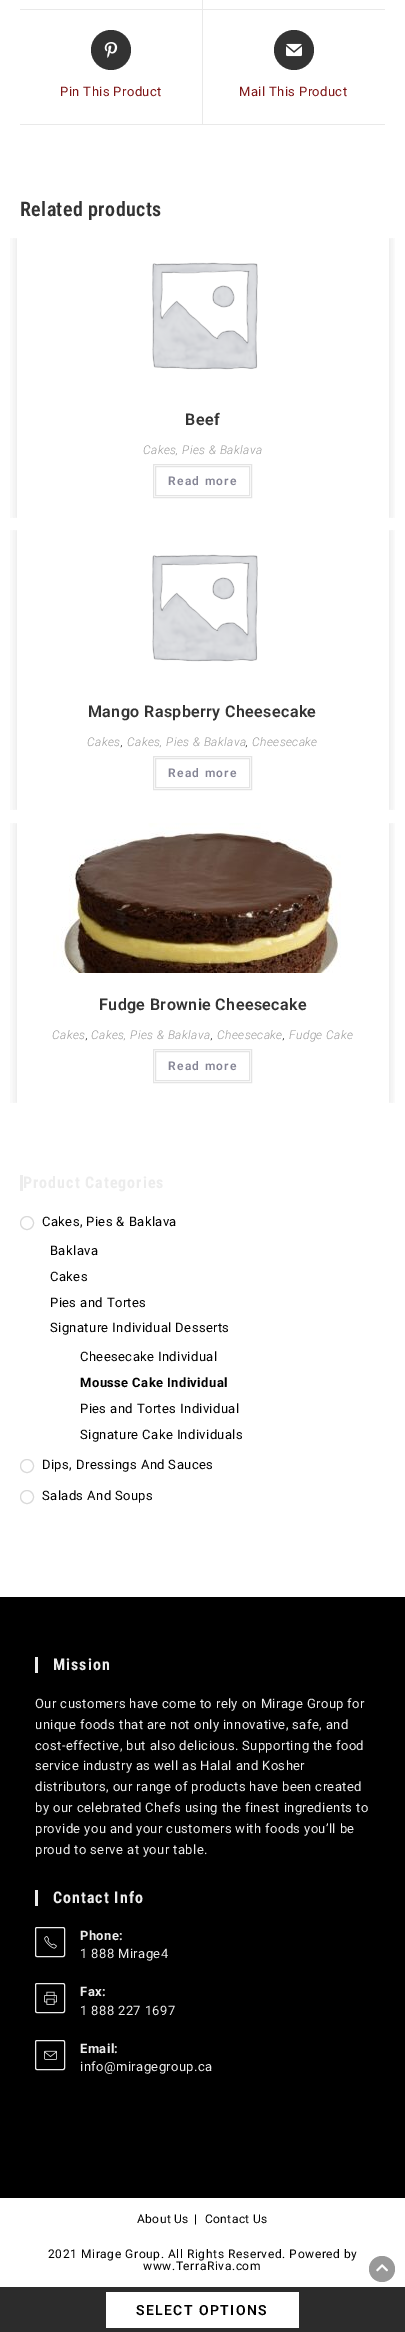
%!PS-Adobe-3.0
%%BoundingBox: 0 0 405 2332
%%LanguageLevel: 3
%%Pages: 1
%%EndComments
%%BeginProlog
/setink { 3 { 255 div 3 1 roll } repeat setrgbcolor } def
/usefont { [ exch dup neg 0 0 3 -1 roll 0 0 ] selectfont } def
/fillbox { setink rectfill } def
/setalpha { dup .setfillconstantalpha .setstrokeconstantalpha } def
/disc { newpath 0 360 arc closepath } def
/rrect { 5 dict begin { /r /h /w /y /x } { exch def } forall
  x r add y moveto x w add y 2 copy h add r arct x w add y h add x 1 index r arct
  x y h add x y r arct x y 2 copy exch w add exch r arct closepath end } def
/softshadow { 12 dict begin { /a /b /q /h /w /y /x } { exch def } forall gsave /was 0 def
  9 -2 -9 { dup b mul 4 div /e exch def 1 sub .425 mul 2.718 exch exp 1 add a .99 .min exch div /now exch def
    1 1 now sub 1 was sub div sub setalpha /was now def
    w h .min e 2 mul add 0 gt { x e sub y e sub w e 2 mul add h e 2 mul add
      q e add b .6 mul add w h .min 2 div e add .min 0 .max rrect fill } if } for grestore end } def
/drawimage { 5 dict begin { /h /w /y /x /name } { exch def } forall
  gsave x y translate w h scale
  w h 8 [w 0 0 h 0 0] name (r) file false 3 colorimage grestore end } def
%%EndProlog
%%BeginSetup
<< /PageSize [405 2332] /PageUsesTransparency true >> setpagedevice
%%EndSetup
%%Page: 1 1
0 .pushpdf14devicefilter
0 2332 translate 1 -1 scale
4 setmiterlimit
0 0 405 2332 255 255 255 fillbox
20 124 365 1 233 233 233 fillbox
202 0 1 124 233 233 233 fillbox
20 9 365 1 233 233 233 fillbox
51 51 51 setink
111 50 20 disc fill
(assets/img1.rgb) 104 42 14 16 drawimage
/Roboto-Regular 13 usefont
127 22 23 setink
60 96 moveto 0.4 0 (Pin This Product) ashow
51 51 51 setink
294 50 20 disc fill
(assets/img2.rgb) 286 43 16 14 drawimage
127 22 23 setink
239 96 moveto 0.4 0 (Mail This Product) ashow
/RobotoCondensed-SemiBold 20 usefont
51 51 51 setink
20 216 moveto 0.4 0 (Related products) ashow
gsave
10 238 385 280 rectclip
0 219 moveto 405 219 lineto 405 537 lineto 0 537 lineto closepath 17 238 moveto 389 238 lineto 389 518 lineto 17 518 lineto closepath eoclip newpath
41 41 41 setink
17 238 372 280 0 6 0.15 softshadow
grestore
(assets/img3.rgb) 152 262 106 108 drawimage
/Roboto-SemiBold 16 usefont
185 425 moveto 0.4 0 (Beef) ashow
/Roboto-LightItalic 12 usefont
153 153 153 setink
143 454 moveto 0.4 0 (Cakes, Pies & Baklava) ashow
228 228 228 setink
153.5 464.5 98 33 rectstroke
155.5 466.5 94 29 rectstroke
/Roboto-SemiBold 12 usefont
132 132 148 setink
168 485 moveto 1.25 0 (Read more) ashow
gsave
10 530 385 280 rectclip
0 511 moveto 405 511 lineto 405 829 lineto 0 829 lineto closepath 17 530 moveto 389 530 lineto 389 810 lineto 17 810 lineto closepath eoclip newpath
41 41 41 setink
17 530 372 280 0 6 0.15 softshadow
grestore
(assets/img3.rgb) 152 554 106 108 drawimage
/Roboto-SemiBold 16 usefont
51 51 51 setink
88 717 moveto 0.4 0 (Mango Raspberry Cheesecake) ashow
/Roboto-LightItalic 12 usefont
153 153 153 setink
87 746 moveto 0.4 0 (Cakes) ashow
36 36 36 setink
121 746 moveto 0.4 0 (,) ashow
153 153 153 setink
127 746 moveto 0.4 0 (Cakes, Pies & Baklava) ashow
36 36 36 setink
246 746 moveto 0.4 0 (,) ashow
153 153 153 setink
252 746 moveto 0.4 0 (Cheesecake) ashow
228 228 228 setink
153.5 756.5 98 33 rectstroke
155.5 758.5 94 29 rectstroke
/Roboto-SemiBold 12 usefont
132 132 148 setink
168 777 moveto 1.25 0 (Read more) ashow
gsave
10 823 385 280 rectclip
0 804 moveto 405 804 lineto 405 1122 lineto 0 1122 lineto closepath 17 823 moveto 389 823 lineto 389 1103 lineto 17 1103 lineto closepath eoclip newpath
41 41 41 setink
17 823 372 280 0 6 0.15 softshadow
grestore
(assets/img4.rgb) 53 823 288 150 drawimage
/Roboto-SemiBold 16 usefont
51 51 51 setink
99 1010 moveto 0.4 0 (Fudge Brownie Cheesecake) ashow
/Roboto-LightItalic 12 usefont
153 153 153 setink
52 1039 moveto 0.4 0 (Cakes) ashow
36 36 36 setink
86 1039 moveto 0.4 0 (,) ashow
153 153 153 setink
91 1039 moveto 0.4 0 (Cakes, Pies & Baklava) ashow
36 36 36 setink
211 1039 moveto 0.4 0 (,) ashow
153 153 153 setink
217 1039 moveto 0.4 0 (Cheesecake) ashow
36 36 36 setink
283 1039 moveto 0.4 0 (,) ashow
153 153 153 setink
289 1039 moveto 0.4 0 (Fudge Cake) ashow
228 228 228 setink
153.5 1049.5 98 33 rectstroke
155.5 1051.5 94 29 rectstroke
/Roboto-SemiBold 12 usefont
132 132 148 setink
168 1070 moveto 1.25 0 (Read more) ashow
20 1175 3 16 236 236 236 fillbox
/RobotoCondensed-Bold 16 usefont
23 1188 moveto 1 0 (Product Categories) ashow
217 217 217 setink
27 1223 6.5 disc stroke
/Roboto-Regular 13 usefont
0 0 0 setink
42 1226 moveto 0.4 0 (Cakes, Pies & Baklava) ashow
50 1255 moveto 0.4 0 (Baklava) ashow
50 1281 moveto 0.4 0 (Cakes) ashow
50 1307 moveto 0.4 0 (Pies and Tortes) ashow
50 1332 moveto 0.4 0 (Signature Individual Desserts) ashow
80 1361 moveto 0.4 0 (Cheesecake Individual) ashow
/Roboto-Bold 13 usefont
80 1387 moveto 0.4 0 (Mousse Cake Individual) ashow
/Roboto-Regular 13 usefont
80 1413 moveto 0.4 0 (Pies and Tortes Individual) ashow
80 1439 moveto 0.4 0 (Signature Cake Individuals) ashow
217 217 217 setink
27 1466 6.5 disc stroke
0 0 0 setink
42 1469 moveto 0.4 0 (Dips, Dressings And Sauces) ashow
217 217 217 setink
27 1497 6.5 disc stroke
0 0 0 setink
42 1500 moveto 0.4 0 (Salads And Soups) ashow
0 1597 405 601 0 0 0 fillbox
35 1657 3 16 236 236 236 fillbox
/RobotoCondensed-Bold 16 usefont
53 1670 moveto 1 0 (Mission) ashow
/Roboto-Regular 13 usefont
35 1708 moveto 0.4 0 (Our customers have come to rely on Mirage Group for) ashow
35 1729 moveto 0.4 0 (unique foods that are not only innovative, safe, and) ashow
35 1750 moveto 0.4 0 (cost-effective, but also delicious. Supporting the food) ashow
35 1770 moveto 0.4 0 (service industry as well as Halal and Kosher) ashow
35 1791 moveto 0.4 0 (distributors, our range of products have been created) ashow
35 1812 moveto 0.4 0 (by our celebrated Chefs using the finest ingredients to) ashow
35 1833 moveto 0.4 0 (provide you and your customers with foods you’ll be) ashow
35 1854 moveto 0.4 0 (proud to serve at your table.) ashow
35 1890 3 16 236 236 236 fillbox
/RobotoCondensed-Bold 16 usefont
53 1903 moveto 1 0 (Contact Info) ashow
35.5 1927.5 29 29 1.5 rrect stroke
(assets/img5.rgb) 44 1936 13 13 drawimage
/Roboto-Bold 13 usefont
80 1940 moveto 0.4 0 (Phone:) ashow
/Roboto-Regular 13 usefont
80 1958 moveto 0.4 0 (1 888 Mirage4) ashow
35.5 1983.5 29 29 1.5 rrect stroke
(assets/img6.rgb) 44 1991 13 14 drawimage
/Roboto-Bold 13 usefont
80 1996 moveto 0.4 0 (Fax:) ashow
/Roboto-Regular 13 usefont
80 2015 moveto 0.4 0 (1 888 227 1697) ashow
35.5 2040.5 29 29 1.5 rrect stroke
(assets/img7.rgb) 44 2050 13 10 drawimage
/Roboto-Bold 13 usefont
80 2053 moveto 0.4 0 (Email:) ashow
/Roboto-Regular 13 usefont
80 2071 moveto 0.4 0 (info@miragegroup.ca) ashow
/Roboto-Regular 12 usefont
0 0 0 setink
137 2223 moveto 0.4 0 (About Us) ashow
194 2223 moveto 0.4 0 (|) ashow
205 2223 moveto 0.4 0 (Contact Us) ashow
48 2258 moveto 0.6 0 (2021 Mirage Group. All Rights Reserved. Powered by) ashow
143 2270 moveto 0.6 0 (www.TerraRiva.com) ashow
0 2287 405 45 44 44 44 fillbox
106 2292 193 36 255 255 255 fillbox
/Roboto-SemiBold 14 usefont
0 0 0 setink
136 2315 moveto 1.4 0 (SELECT OPTIONS) ashow
153 153 153 setink
382 2269 13 disc fill
(assets/img8.rgb) 376 2264 12 8 drawimage
.poppdf14devicefilter showpage
%%EOF
